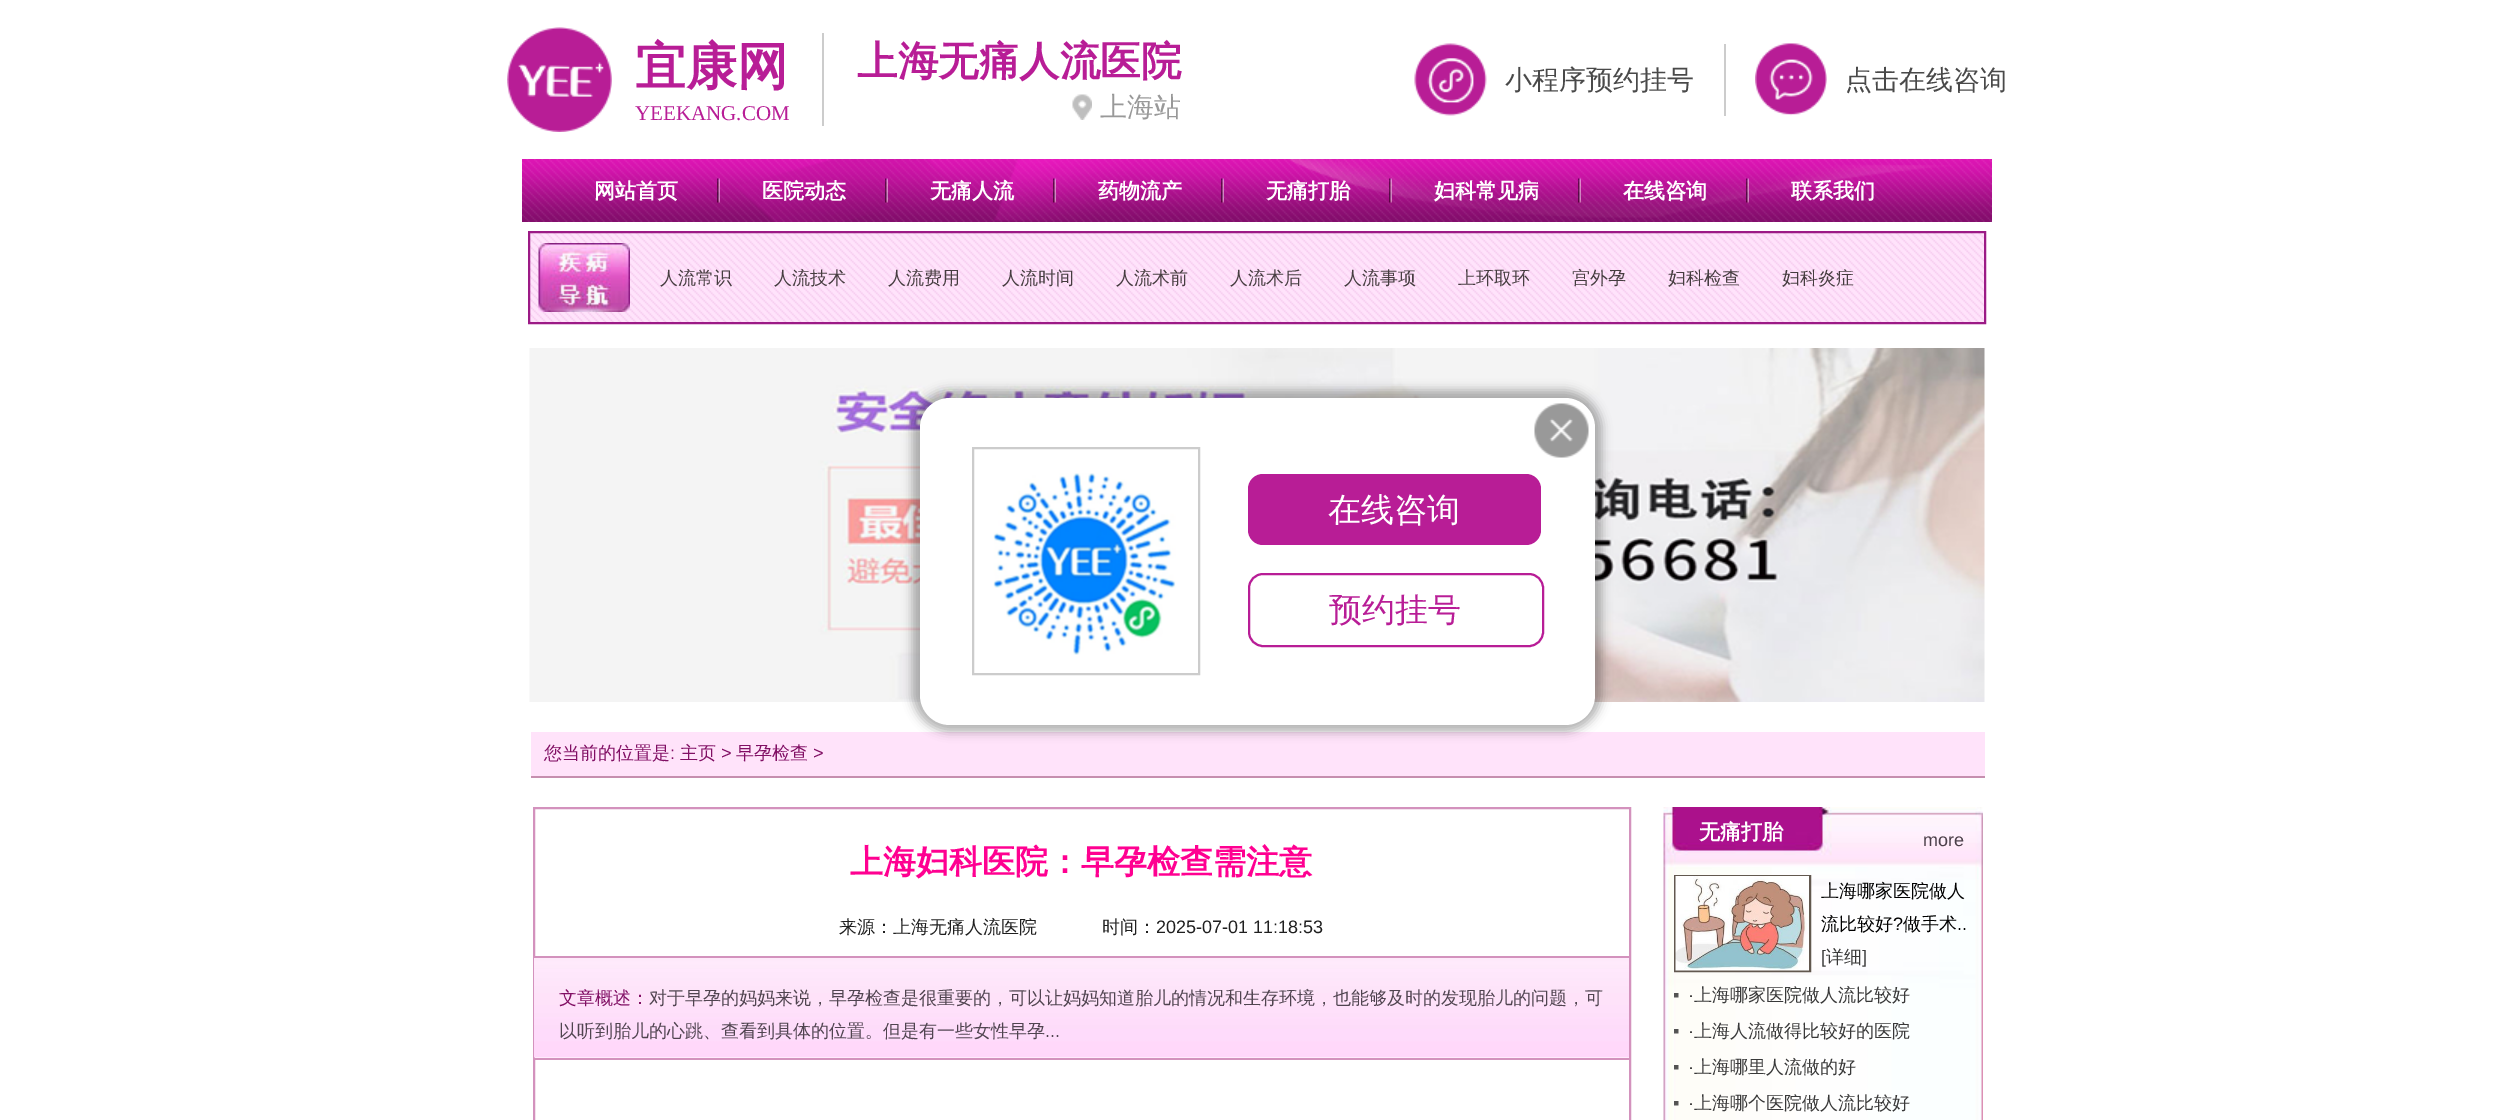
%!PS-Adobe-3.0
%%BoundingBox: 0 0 2513 1120
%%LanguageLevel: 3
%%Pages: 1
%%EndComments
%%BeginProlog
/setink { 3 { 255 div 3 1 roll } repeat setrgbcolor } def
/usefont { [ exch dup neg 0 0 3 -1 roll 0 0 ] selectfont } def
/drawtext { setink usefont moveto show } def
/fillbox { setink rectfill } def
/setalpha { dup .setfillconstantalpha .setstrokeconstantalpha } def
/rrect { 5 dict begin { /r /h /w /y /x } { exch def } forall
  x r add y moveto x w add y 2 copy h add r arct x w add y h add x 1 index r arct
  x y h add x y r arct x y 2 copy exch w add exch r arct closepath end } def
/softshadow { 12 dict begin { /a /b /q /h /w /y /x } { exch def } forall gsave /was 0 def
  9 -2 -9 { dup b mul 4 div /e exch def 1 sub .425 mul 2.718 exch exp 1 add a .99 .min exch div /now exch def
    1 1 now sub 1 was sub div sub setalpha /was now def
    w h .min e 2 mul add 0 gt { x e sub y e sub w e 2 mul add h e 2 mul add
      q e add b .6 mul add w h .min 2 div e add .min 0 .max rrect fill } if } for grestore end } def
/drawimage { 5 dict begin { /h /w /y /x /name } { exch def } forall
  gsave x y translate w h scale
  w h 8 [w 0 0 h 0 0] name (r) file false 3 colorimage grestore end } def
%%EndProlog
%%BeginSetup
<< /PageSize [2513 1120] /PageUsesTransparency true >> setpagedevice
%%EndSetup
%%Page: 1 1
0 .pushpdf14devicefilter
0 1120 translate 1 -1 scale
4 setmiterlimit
0 0 2513 1120 255 255 255 fillbox
(assets/img1.rgb) 507 27 105 105 drawimage
822 33 2 93 204 204 204 fillbox
(宜康网) 635 84 /WenQuanYiZenHei-Bold 51 184 29 150 drawtext
(YEEKANG.COM) 635 120 /LiberationSerif-Regular 21 184 29 150 drawtext
(上海无痛人流医院) 857 75 /WenQuanYiZenHei-Bold 40.5 184 29 150 drawtext
(assets/img2.rgb) 1072 94 20 26 drawimage
(上海站) 1100 116 /WenQuanYiZenHei-Medium 27 153 153 153 drawtext
(assets/img3.rgb) 1414 43 73 73 drawimage
1724 44 2 72 204 204 204 fillbox
(小程序预约挂号) 1505 89 /WenQuanYiZenHei-Medium 27 73 73 73 drawtext
(assets/img4.rgb) 1755 43 72 73 drawimage
(点击在线咨询) 1845 89 /WenQuanYiZenHei-Medium 27 73 73 73 drawtext
(assets/img5.rgb) 522 159 1470 63 drawimage
(assets/img6.rgb) 717 178 3 25 drawimage
(网站首页) 594 198 /WenQuanYiZenHei-Bold 21 255 255 255 drawtext
(assets/img7.rgb) 885 178 3 25 drawimage
(医院动态) 762 198 /WenQuanYiZenHei-Bold 21 255 255 255 drawtext
(assets/img8.rgb) 1053 178 3 25 drawimage
(无痛人流) 930 198 /WenQuanYiZenHei-Bold 21 255 255 255 drawtext
(assets/img9.rgb) 1221 178 3 25 drawimage
(药物流产) 1098 198 /WenQuanYiZenHei-Bold 21 255 255 255 drawtext
(assets/img10.rgb) 1389 178 3 25 drawimage
(无痛打胎) 1266 198 /WenQuanYiZenHei-Bold 21 255 255 255 drawtext
(assets/img11.rgb) 1578 178 3 25 drawimage
(妇科常见病) 1434 198 /WenQuanYiZenHei-Bold 21 255 255 255 drawtext
(assets/img12.rgb) 1746 178 3 25 drawimage
(在线咨询) 1623 198 /WenQuanYiZenHei-Bold 21 255 255 255 drawtext
(联系我们) 1791 198 /WenQuanYiZenHei-Bold 21 255 255 255 drawtext
(assets/img13.rgb) 530 233 1454 89 drawimage
156 26 134 setink
2 setlinewidth
529 232 1456 91 rectstroke
(assets/img14.rgb) 538 243 92 69 drawimage
(人流常识) 660 284 /WenQuanYiZenHei-Medium 18 70 61 64 drawtext
(人流技术) 774 284 /WenQuanYiZenHei-Medium 18 70 61 64 drawtext
(人流费用) 888 284 /WenQuanYiZenHei-Medium 18 70 61 64 drawtext
(人流时间) 1002 284 /WenQuanYiZenHei-Medium 18 70 61 64 drawtext
(人流术前) 1116 284 /WenQuanYiZenHei-Medium 18 70 61 64 drawtext
(人流术后) 1230 284 /WenQuanYiZenHei-Medium 18 70 61 64 drawtext
(人流事项) 1344 284 /WenQuanYiZenHei-Medium 18 70 61 64 drawtext
(上环取环) 1458 284 /WenQuanYiZenHei-Medium 18 70 61 64 drawtext
(宫外孕) 1572 284 /WenQuanYiZenHei-Medium 18 70 61 64 drawtext
(妇科检查) 1668 284 /WenQuanYiZenHei-Medium 18 70 61 64 drawtext
(妇科炎症) 1782 284 /WenQuanYiZenHei-Medium 18 70 61 64 drawtext
(assets/img15.rgb) 529 348 1456 354 drawimage
531 732 1454 44 255 227 250 fillbox
0 0 0 setink
912 390 690 342 38 5 0.3 softshadow
255 255 255 setink
920 398 675 327 30 rrect fill
(assets/img16.rgb) 1534 403 55 55 drawimage
204 204 204 setink
973 448 226 226 rectstroke
(assets/img17.rgb) 993 473 183 182 drawimage
184 29 150 setink
1248 474 293 71 15 rrect fill
(在线咨询) 1328 521 /WenQuanYiZenHei-Medium 33 255 255 255 drawtext
184 29 150 setink
1249 574 294 72 14 rrect stroke
(预约挂号) 1329 621 /WenQuanYiZenHei-Medium 33 184 29 150 drawtext
531 776 1454 2 198 143 175 fillbox
(您当前的位置是) 544 759 /WenQuanYiZenHei-Medium 18 129 15 100 drawtext
(:) 670 759 /LiberationSans-Regular 18 129 15 100 drawtext
(主页) 680 759 /WenQuanYiZenHei-Medium 18 129 15 100 drawtext
(>) 721 759 /LiberationSans-Regular 18 129 15 100 drawtext
(早孕检查) 736 759 /WenQuanYiZenHei-Medium 18 129 15 100 drawtext
(>) 813 759 /LiberationSans-Regular 18 129 15 100 drawtext
211 146 189 setink
534 808 1096 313 rectstroke
(上海妇科医院：早孕检查需注意) 850 873 /WenQuanYiZenHei-Bold 33 255 0 145 drawtext
(来源：上海无痛人流医院) 839 933 /WenQuanYiZenHei-Medium 18 31 31 31 drawtext
(时间：) 1102 933 /WenQuanYiZenHei-Medium 18 31 31 31 drawtext
(2025-07-01 11:18:53) 1156 933 /LiberationSans-Regular 18 31 31 31 drawtext
(assets/img18.rgb) 534 958 1095 100 drawimage
534 956 1095 2 211 146 189 fillbox
534 1058 1095 2 211 146 189 fillbox
(文章概述：) 559 1004 /WenQuanYiZenHei-Medium 18 129 15 100 drawtext
(对于早孕的妈妈来说，早孕检查是很重要的，可以让妈妈知道胎儿的情况和生存环境，也能够及时的发现胎儿的问题，可) 649 1004 /WenQuanYiZenHei-Medium 18 80 68 80 drawtext
(以听到胎儿的心跳、查看到具体的位置。但是有一些女性早孕) 559 1037 /WenQuanYiZenHei-Medium 18 80 68 80 drawtext
(...) 1045 1037 /LiberationSans-Regular 18 80 68 80 drawtext
(assets/img19.rgb) 1663 807 320 313 drawimage
(无痛打胎) 1699 839 /WenQuanYiZenHei-Bold 21 255 255 255 drawtext
(more) 1923 846 /LiberationSans-Regular 18 76 64 74 drawtext
98 88 79 setink
1675 876 135 95 rectstroke
(assets/img20.rgb) 1675 876 134 95 drawimage
(上海哪家医院做人) 1821 897 /WenQuanYiZenHei-Medium 18 0 0 0 drawtext
(流比较好) 1821 930 /WenQuanYiZenHei-Medium 18 0 0 0 drawtext
(?) 1893 930 /LiberationSans-Regular 18 0 0 0 drawtext
(做手术) 1903 930 /WenQuanYiZenHei-Medium 18 0 0 0 drawtext
(..) 1957 930 /LiberationSans-Regular 18 0 0 0 drawtext
([) 1821 963 /LiberationSans-Regular 18 57 57 57 drawtext
(详细) 1826 963 /WenQuanYiZenHei-Medium 18 57 57 57 drawtext
(]) 1862 963 /LiberationSans-Regular 18 57 57 57 drawtext
(assets/img21.rgb) 1674 993 5 5 drawimage
(·) 1688 1001 /LiberationSans-Regular 18 0 0 0 drawtext
(上海哪家医院做人流比较好) 1694 1001 /WenQuanYiZenHei-Medium 18 57 57 57 drawtext
(assets/img21.rgb) 1674 1029 5 5 drawimage
(·) 1688 1037 /LiberationSans-Regular 18 0 0 0 drawtext
(上海人流做得比较好的医院) 1694 1037 /WenQuanYiZenHei-Medium 18 57 57 57 drawtext
(assets/img21.rgb) 1674 1065 5 5 drawimage
(·) 1688 1073 /LiberationSans-Regular 18 0 0 0 drawtext
(上海哪里人流做的好) 1694 1073 /WenQuanYiZenHei-Medium 18 57 57 57 drawtext
(assets/img21.rgb) 1674 1101 5 5 drawimage
(·) 1688 1109 /LiberationSans-Regular 18 0 0 0 drawtext
(上海哪个医院做人流比较好) 1694 1109 /WenQuanYiZenHei-Medium 18 57 57 57 drawtext
.poppdf14devicefilter showpage
%%EOF
